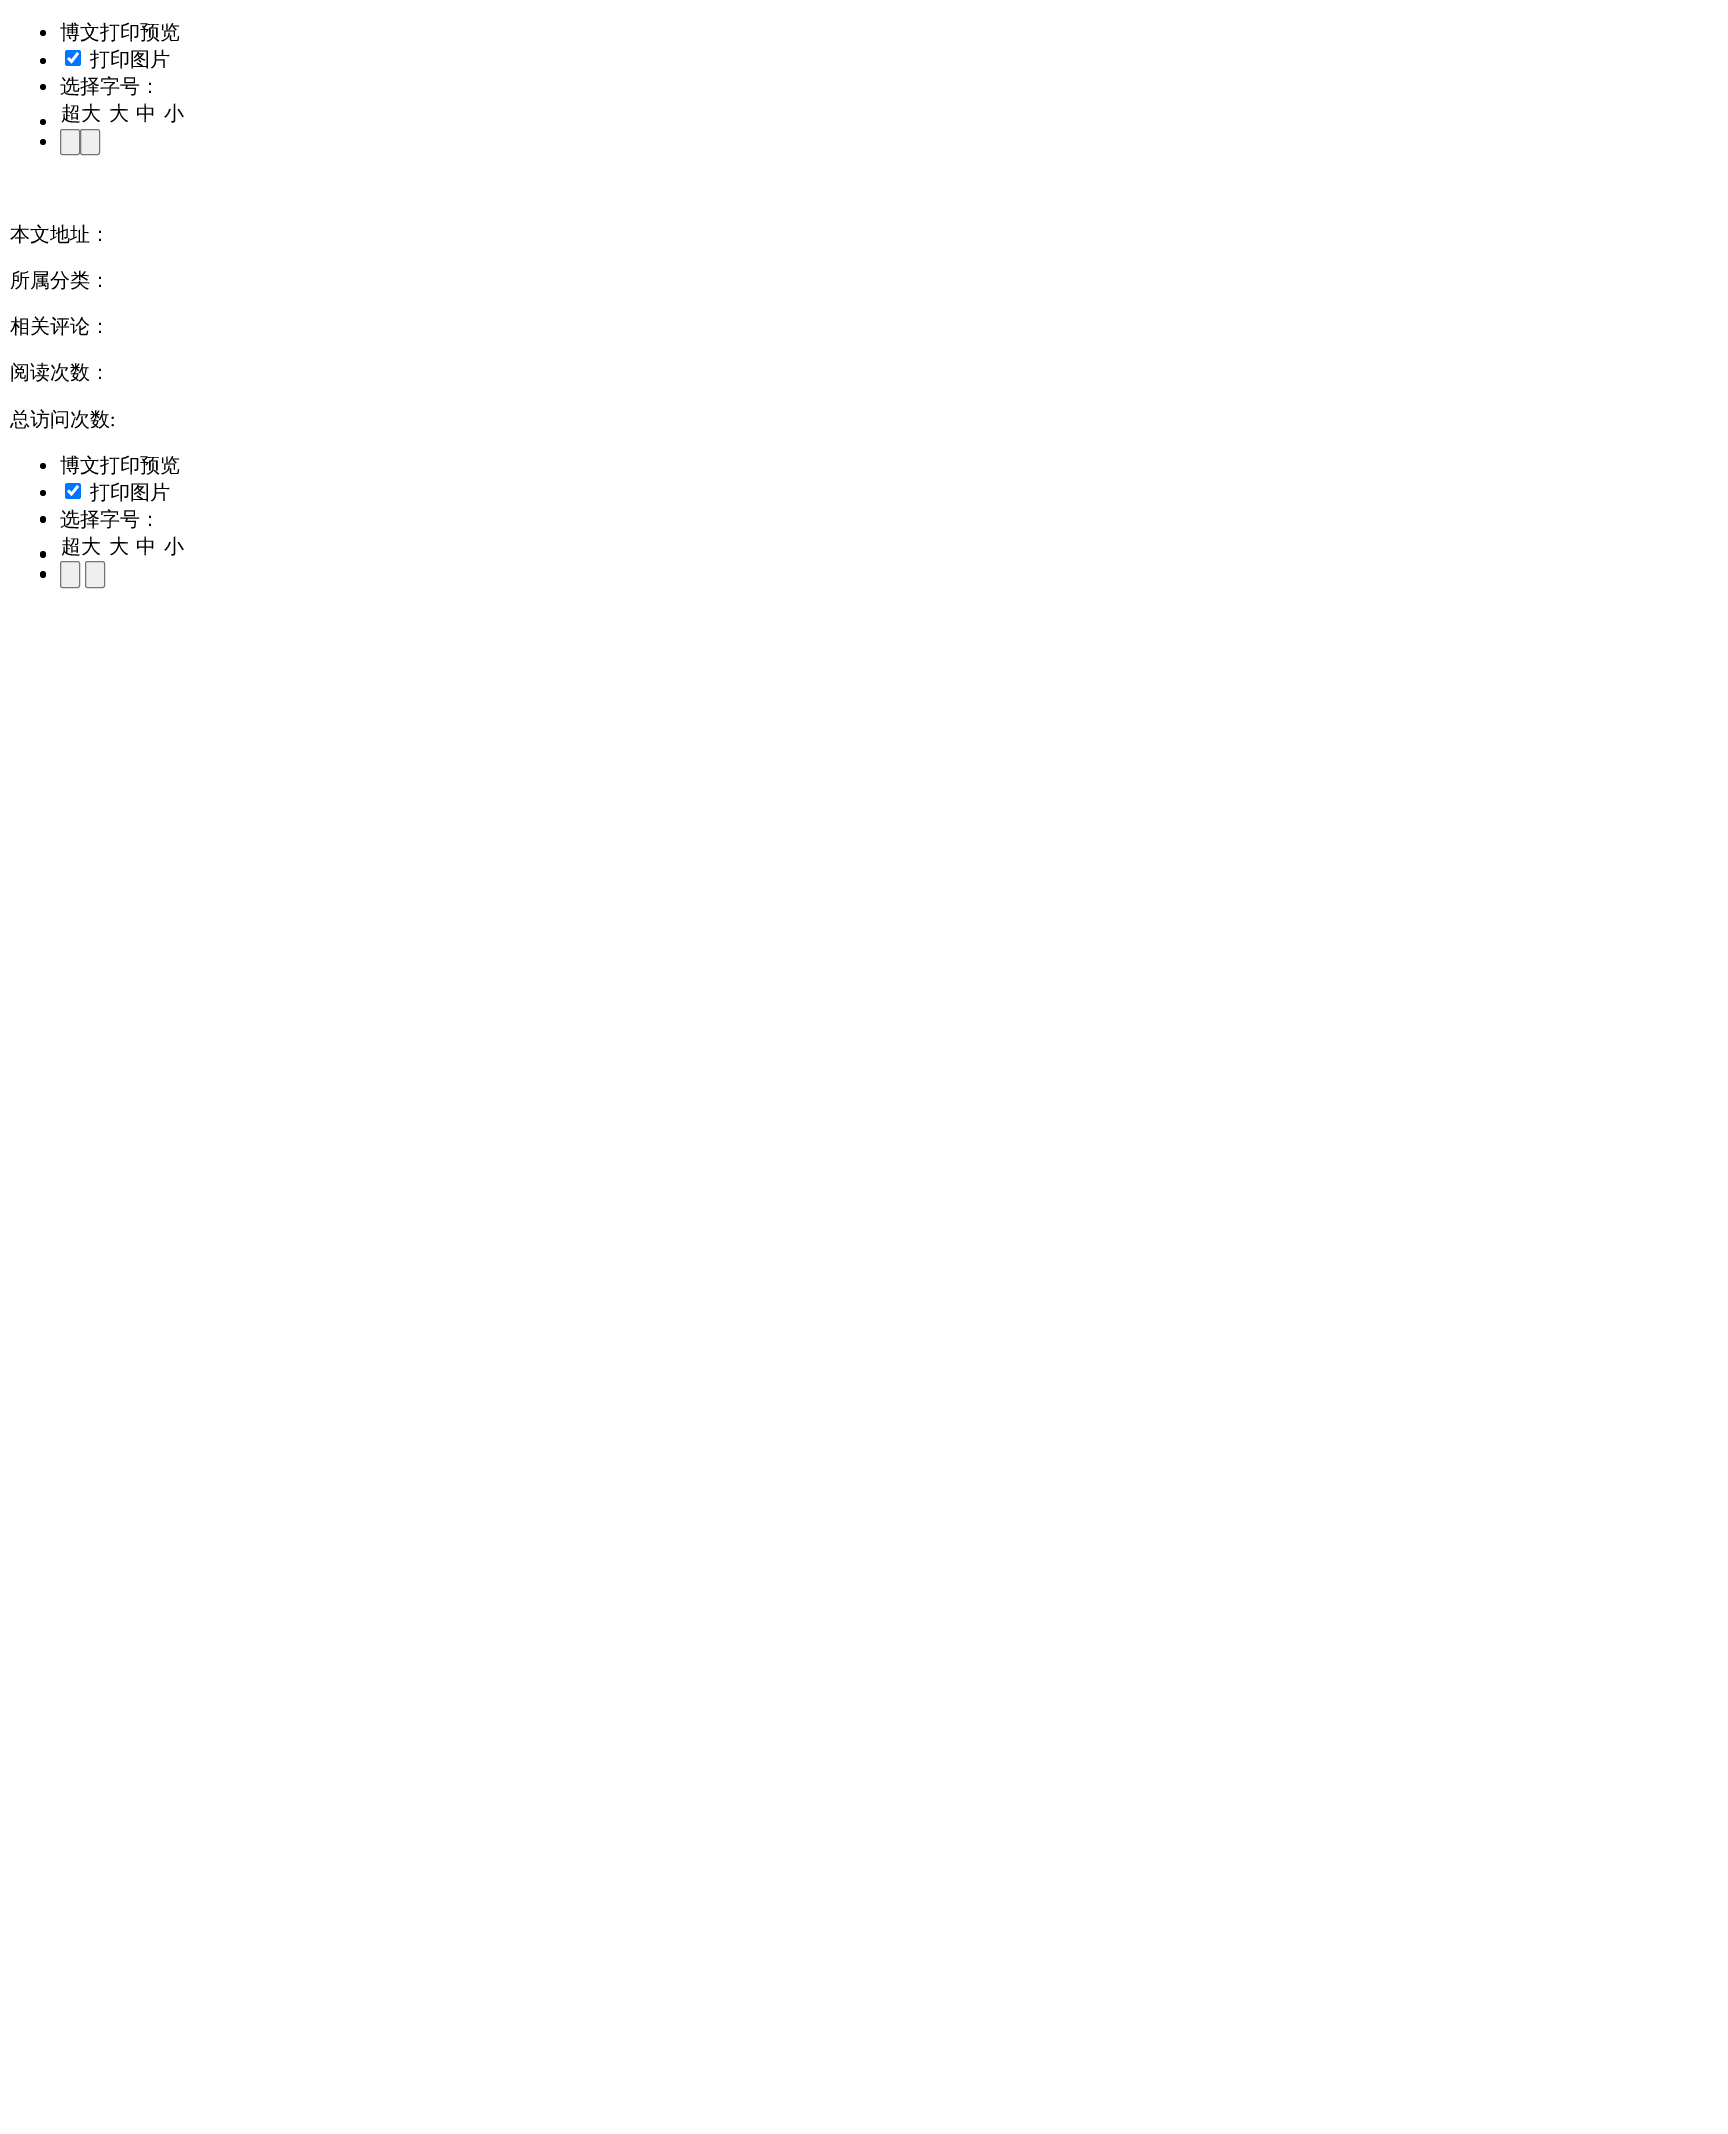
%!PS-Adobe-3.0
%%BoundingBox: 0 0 1728 2134
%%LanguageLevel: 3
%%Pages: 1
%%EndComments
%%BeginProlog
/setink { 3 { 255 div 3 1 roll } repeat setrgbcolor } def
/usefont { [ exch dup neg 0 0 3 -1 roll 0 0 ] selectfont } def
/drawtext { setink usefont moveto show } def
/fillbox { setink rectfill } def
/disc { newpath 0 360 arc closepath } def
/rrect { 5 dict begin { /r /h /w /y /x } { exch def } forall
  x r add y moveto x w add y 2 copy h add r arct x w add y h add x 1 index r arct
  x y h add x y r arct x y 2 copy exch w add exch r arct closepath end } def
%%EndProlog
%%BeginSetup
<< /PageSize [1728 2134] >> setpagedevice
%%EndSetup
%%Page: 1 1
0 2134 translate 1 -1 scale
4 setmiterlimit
0 0 1728 2134 255 255 255 fillbox
0 0 0 setink
43 33 3 disc fill
(博文打印预览) 60 39 /WenQuanYiZenHei-Medium 20 0 0 0 drawtext
43 61 3 disc fill
0 117 255 setink
65 50 16 16 2.5 rrect fill
255 255 255 setink
2.6 setlinewidth
68 58 moveto 71.5 61.5 lineto 78 53 lineto stroke
(打印图片) 90 66 /WenQuanYiZenHei-Medium 20 0 0 0 drawtext
43 87 3 disc fill
(选择字号：) 60 93 /WenQuanYiZenHei-Medium 20 0 0 0 drawtext
43 122 3 disc fill
(超大) 61 120 /WenQuanYiZenHei-Medium 20 0 0 0 drawtext
(大) 109 120 /WenQuanYiZenHei-Medium 20 0 0 0 drawtext
(中) 136 120 /WenQuanYiZenHei-Medium 20 0 0 0 drawtext
(小) 164 120 /WenQuanYiZenHei-Medium 20 0 0 0 drawtext
43 142 3 disc fill
239 239 239 setink
60.5 129.5 19 25 2 rrect gsave fill grestore
118 118 118 setink
1 setlinewidth
stroke
239 239 239 setink
80.5 129.5 19 25 2 rrect gsave fill grestore
118 118 118 setink
stroke
(本文地址：) 10 241 /WenQuanYiZenHei-Medium 20 0 0 0 drawtext
(所属分类：) 10 287 /WenQuanYiZenHei-Medium 20 0 0 0 drawtext
(相关评论：) 10 333 /WenQuanYiZenHei-Medium 20 0 0 0 drawtext
(阅读次数：) 10 379 /WenQuanYiZenHei-Medium 20 0 0 0 drawtext
(总访问次数) 10 426 /WenQuanYiZenHei-Medium 20 0 0 0 drawtext
(:) 110 426 /LiberationSerif-Regular 20 0 0 0 drawtext
43 466 3 disc fill
(博文打印预览) 60 472 /WenQuanYiZenHei-Medium 20 0 0 0 drawtext
43 493 3 disc fill
0 117 255 setink
65 483 16 16 2.5 rrect fill
255 255 255 setink
2.6 setlinewidth
68 490.5 moveto 71.5 494 lineto 78 486 lineto stroke
(打印图片) 90 499 /WenQuanYiZenHei-Medium 20 0 0 0 drawtext
40 516 6 7 3 rrect fill
(选择字号：) 60 526 /WenQuanYiZenHei-Medium 20 0 0 0 drawtext
40 551 6 7 3 rrect fill
(超大) 61 553 /WenQuanYiZenHei-Medium 20 0 0 0 drawtext
(大) 109 553 /WenQuanYiZenHei-Medium 20 0 0 0 drawtext
(中) 136 553 /WenQuanYiZenHei-Medium 20 0 0 0 drawtext
(小) 164 553 /WenQuanYiZenHei-Medium 20 0 0 0 drawtext
40 571 6 7 3 rrect fill
239 239 239 setink
60.5 561.5 19 26 2 rrect gsave fill grestore
118 118 118 setink
1 setlinewidth
stroke
239 239 239 setink
85.5 561.5 19 26 2 rrect gsave fill grestore
118 118 118 setink
stroke
showpage
%%EOF
